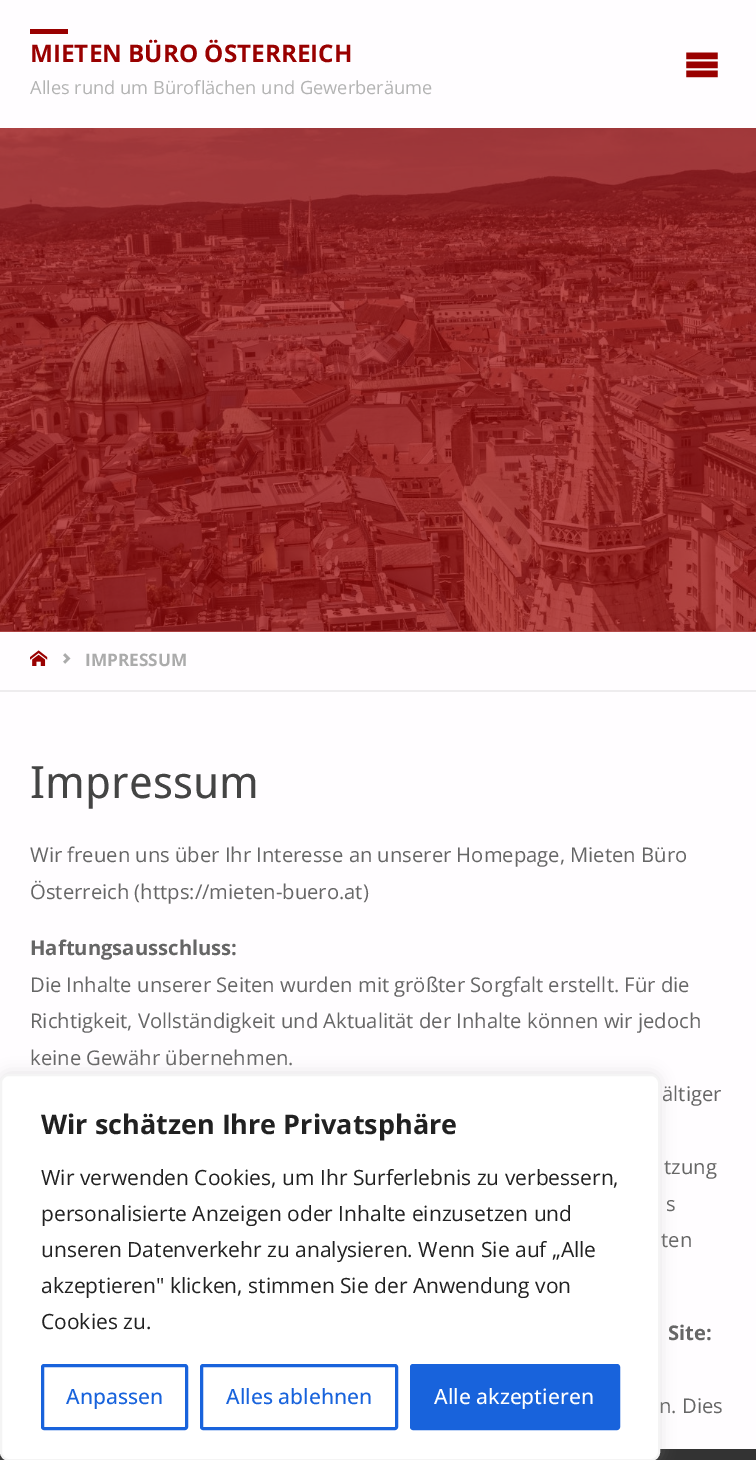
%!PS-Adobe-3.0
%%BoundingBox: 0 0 756 1460
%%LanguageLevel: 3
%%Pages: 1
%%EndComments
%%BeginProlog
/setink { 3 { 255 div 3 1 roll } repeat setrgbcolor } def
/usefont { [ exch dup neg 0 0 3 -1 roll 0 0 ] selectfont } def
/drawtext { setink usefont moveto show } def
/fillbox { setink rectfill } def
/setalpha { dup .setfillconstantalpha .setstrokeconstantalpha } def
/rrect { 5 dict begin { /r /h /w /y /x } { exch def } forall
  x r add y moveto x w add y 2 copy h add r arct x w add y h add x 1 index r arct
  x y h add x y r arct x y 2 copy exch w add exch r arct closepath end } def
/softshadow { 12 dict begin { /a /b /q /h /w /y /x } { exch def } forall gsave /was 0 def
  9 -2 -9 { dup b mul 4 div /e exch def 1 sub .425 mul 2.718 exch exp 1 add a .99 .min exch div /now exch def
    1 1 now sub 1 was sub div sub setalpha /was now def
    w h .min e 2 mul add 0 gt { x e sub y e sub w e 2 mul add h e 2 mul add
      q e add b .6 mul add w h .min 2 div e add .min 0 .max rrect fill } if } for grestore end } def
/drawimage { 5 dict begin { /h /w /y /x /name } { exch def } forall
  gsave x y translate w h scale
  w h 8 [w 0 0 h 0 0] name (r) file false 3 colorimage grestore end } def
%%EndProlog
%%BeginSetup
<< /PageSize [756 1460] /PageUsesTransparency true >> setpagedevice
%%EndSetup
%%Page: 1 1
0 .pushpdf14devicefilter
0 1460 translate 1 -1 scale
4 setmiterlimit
0 0 756 1460 255 253 255 fillbox
0 631 756 1 184 76 77 fillbox
30 29 38 5 153 0 0 fillbox
(MIETEN BÜRO ÖSTERREICH) 30 62 /OpenSans-Bold 24.25 153 0 0 drawtext
(Alles rund um Büroflächen und Gewerberäume) 30 94 /OpenSans-Regular 18.25 179 179 179 drawtext
(assets/img1.rgb) 686 52 32 26 drawimage
(assets/img2.rgb) 0 128 756 504 drawimage
0 690 756 2 238 236 238 fillbox
(assets/img3.rgb) 30 650 18 16 drawimage
(assets/img4.rgb) 63 653 8 11 drawimage
(IMPRESSUM) 85 666 /OpenSans-Bold 17.25 171 171 171 drawtext
(Impressum) 30 798 /DroidSans-Regular 44.5 68 68 68 drawtext
(Wir freuen uns über Ihr Interesse an unserer Homepage, Mieten Büro) 30 862 /OpenSans-Regular 20.25 102 102 102 drawtext
(Österreich \(https://mieten-buero.at\)) 30 899 /OpenSans-Regular 20.25 102 102 102 drawtext
(Haftungsausschluss:) 30 955 /OpenSans-Bold 20.25 102 102 102 drawtext
(Die Inhalte unserer Seiten wurden mit größter Sorgfalt erstellt. Für die) 30 992 /OpenSans-Regular 20.25 102 102 102 drawtext
(Richtigkeit, Vollständigkeit und Aktualität der Inhalte können wir jedoch) 30 1028 /OpenSans-Regular 20.25 102 102 102 drawtext
(keine Gewähr übernehmen.) 30 1065 /OpenSans-Regular 20.25 102 102 102 drawtext
(ältiger) 662 1101 /OpenSans-Regular 20.25 102 102 102 drawtext
(tzung) 664 1174 /OpenSans-Regular 20.25 102 102 102 drawtext
(s) 666 1211 /OpenSans-Regular 20.25 102 102 102 drawtext
(ten) 661 1247 /OpenSans-Regular 20.25 102 102 102 drawtext
(Site:) 668 1340 /OpenSans-Bold 20.25 102 102 102 drawtext
(n. Dies) 659 1413 /OpenSans-Regular 20.25 102 102 102 drawtext
0 1449 756 11 51 51 51 fillbox
172 171 171 setink
0 1073 660 387 9 7.5 0.3 softshadow
255 255 255 setink
1 1075 658 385 8 rrect gsave fill grestore
244 244 244 setink
2 setlinewidth
stroke
(Wir schätzen Ihre Privatsphäre) 41 1134 /OpenSans-Bold 27 33 33 33 drawtext
(Wir verwenden Cookies, um Ihr Surferlebnis zu verbessern,) 41 1185 /OpenSans-Regular 21 33 33 33 drawtext
(personalisierte Anzeigen oder Inhalte einzusetzen und) 41 1221 /OpenSans-Regular 21 33 33 33 drawtext
(unseren Datenverkehr zu analysieren. Wenn Sie auf „Alle) 41 1257 /OpenSans-Regular 21 33 33 33 drawtext
(akzeptieren" klicken, stimmen Sie der Anwendung von) 41 1293 /OpenSans-Regular 21 33 33 33 drawtext
(Cookies zu.) 41 1329 /OpenSans-Regular 21 33 33 33 drawtext
24 99 220 setink
3 setlinewidth
42.5 1365.5 144 63 1.5 rrect stroke
(Anpassen) 66 1404 /OpenSans-Medium 21 24 99 220 drawtext
201.5 1365.5 195 63 1.5 rrect stroke
(Alles ablehnen) 226 1404 /OpenSans-Medium 21 24 99 220 drawtext
411.5 1365.5 207 63 1.5 rrect gsave fill grestore
stroke
(Alle akzeptieren) 434 1404 /OpenSans-Medium 21 255 255 255 drawtext
.poppdf14devicefilter showpage
%%EOF
